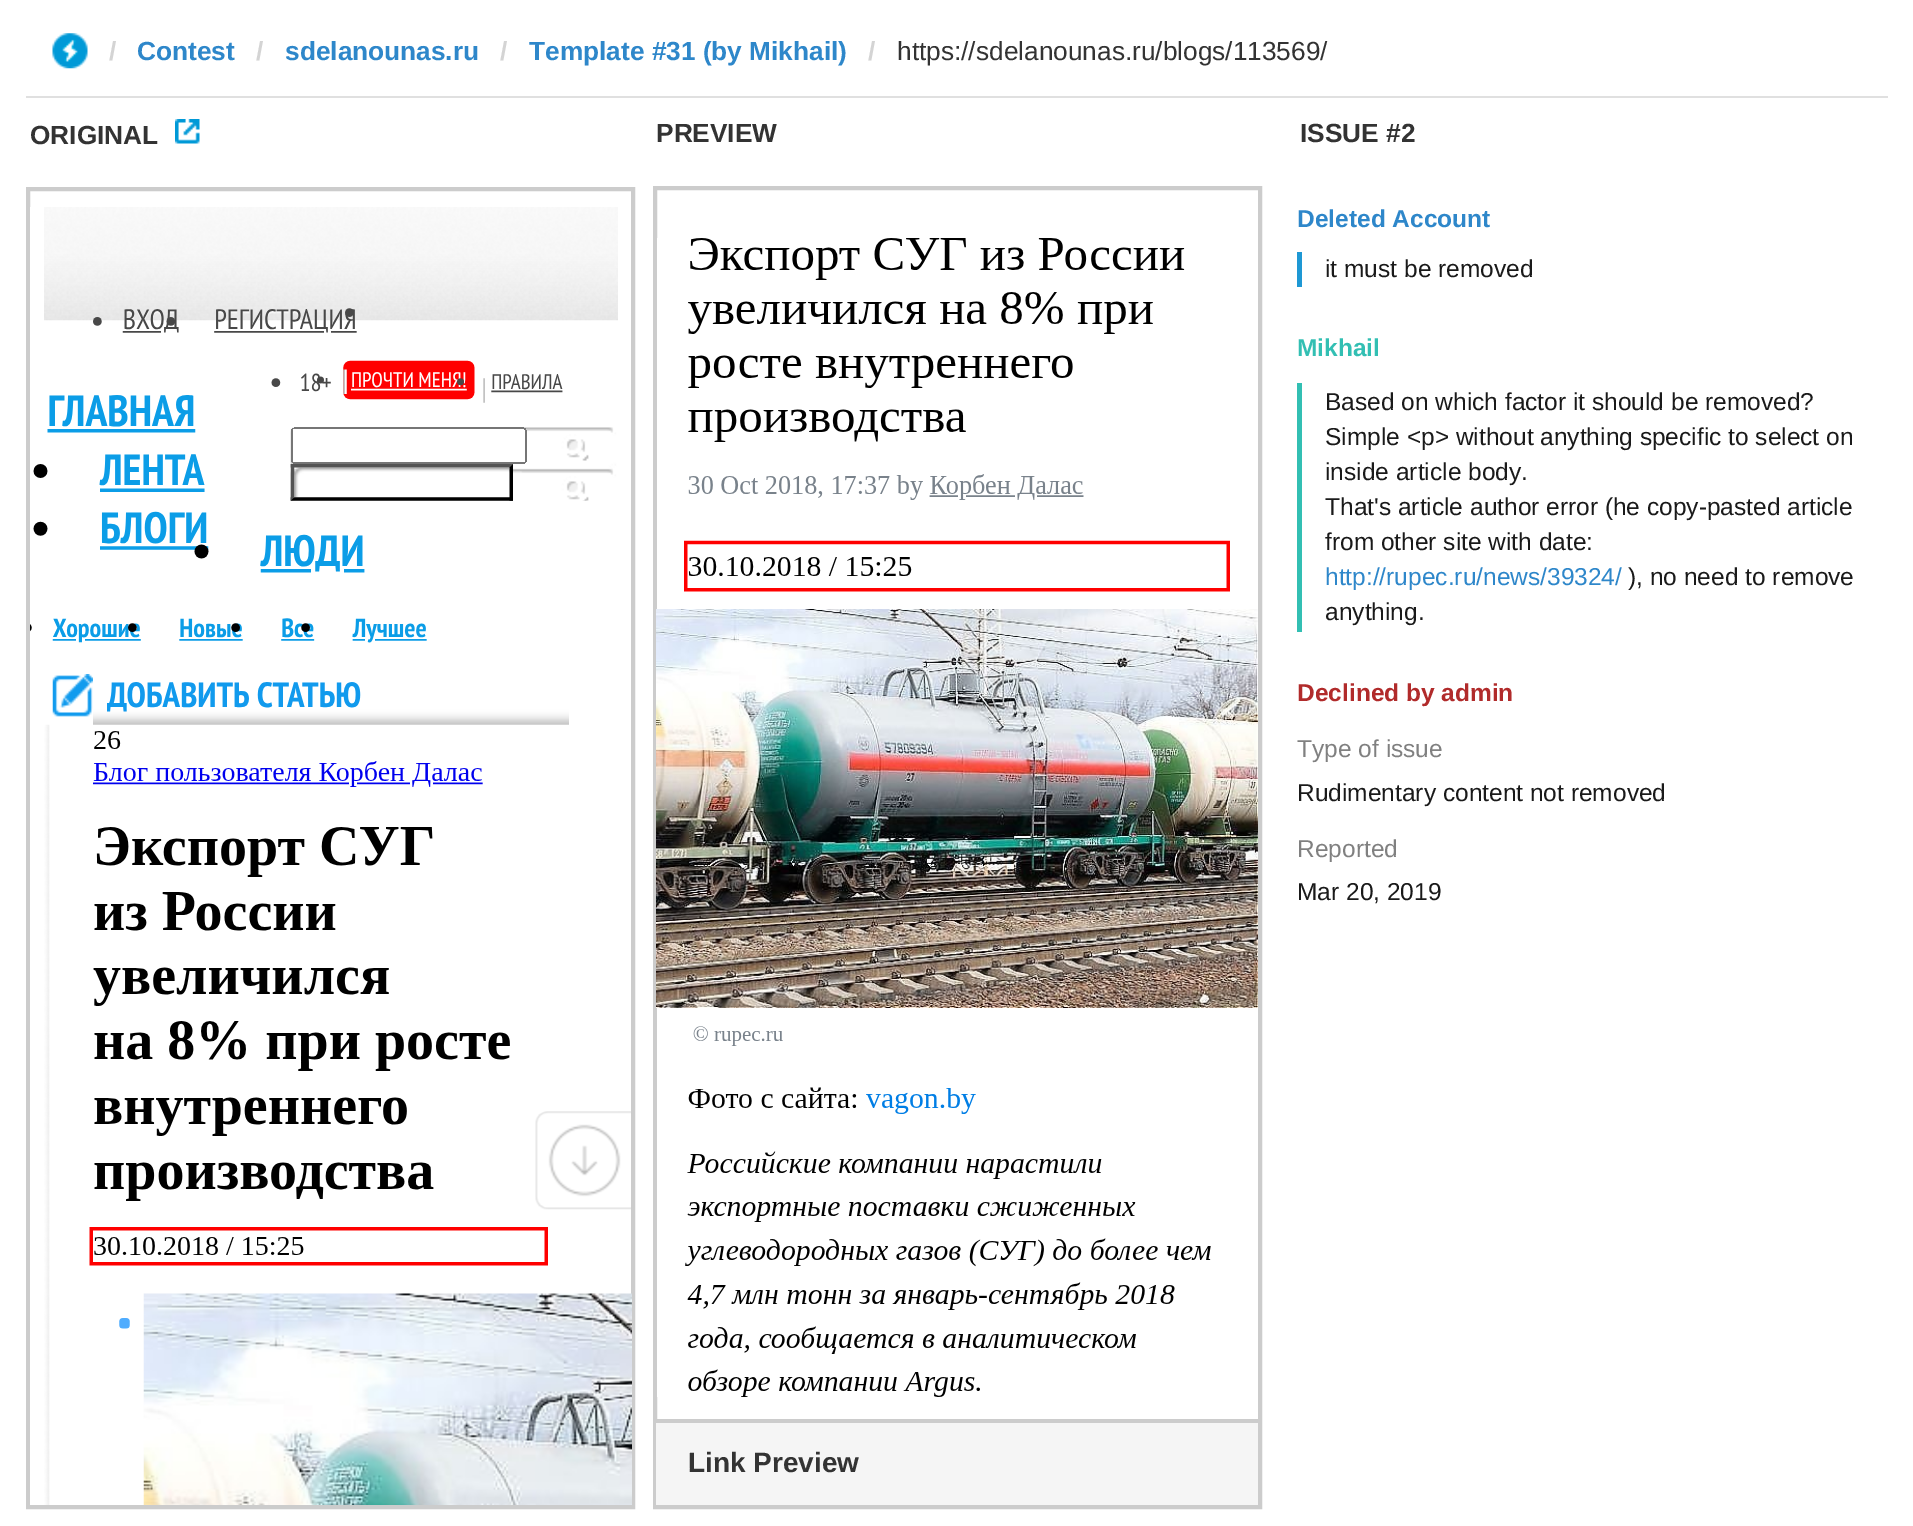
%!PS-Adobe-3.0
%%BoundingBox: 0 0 1913 1526
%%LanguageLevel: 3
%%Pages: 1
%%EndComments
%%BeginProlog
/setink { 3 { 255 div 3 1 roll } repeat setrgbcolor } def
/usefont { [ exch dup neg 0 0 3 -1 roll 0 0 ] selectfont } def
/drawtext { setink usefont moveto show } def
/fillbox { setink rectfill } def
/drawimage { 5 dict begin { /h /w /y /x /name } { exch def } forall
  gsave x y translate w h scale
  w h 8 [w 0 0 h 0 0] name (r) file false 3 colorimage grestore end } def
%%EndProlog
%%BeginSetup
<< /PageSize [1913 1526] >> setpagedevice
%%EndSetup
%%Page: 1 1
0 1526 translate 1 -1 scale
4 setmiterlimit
0 0 1913 1526 255 255 255 fillbox
26 96 1862 2 224 224 224 fillbox
(assets/img1.rgb) 52 33 36 36 drawimage
(/) 109 60 /LiberationSans-Bold 26.25 212 212 212 drawtext
(Contest) 137 60 /LiberationSans-Bold 26.25 46 135 202 drawtext
(/) 256 60 /LiberationSans-Bold 26.25 212 212 212 drawtext
(sdelanounas.ru) 285 60 /LiberationSans-Bold 26.25 46 135 202 drawtext
(/) 500 60 /LiberationSans-Bold 26.25 212 212 212 drawtext
(Template #31 \(by Mikhail\)) 529 60 /LiberationSans-Bold 26.25 46 135 202 drawtext
(/) 868 60 /LiberationSans-Bold 26.25 212 212 212 drawtext
(https://sdelanounas.ru/blogs/113569/) 897 60 /LiberationSans-Regular 26.25 51 51 51 drawtext
(ORIGINAL) 30 144 /LiberationSans-Bold 26.25 51 51 51 drawtext
(assets/img2.rgb) 175 119 25 25 drawimage
204 204 204 setink
4 setlinewidth
28 189 605 1318 rectstroke
(assets/img3.rgb) 30 207 602 1298 drawimage
(PREVIEW) 656 142 /LiberationSans-Bold 26.25 51 51 51 drawtext
204 204 204 setink
655 188 605 1319 rectstroke
(assets/img4.rgb) 656 238 602 1159 drawimage
656 1419 602 4 204 204 204 fillbox
656 1423 602 82 245 245 245 fillbox
(Link Preview) 688 1472 /LiberationSans-Bold 28 51 51 51 drawtext
(ISSUE #2) 1300 142 /LiberationSans-Bold 26.25 51 51 51 drawtext
(Deleted Account) 1297 227 /LiberationSans-Bold 24.5 46 135 202 drawtext
1297 252 5 35 30 152 212 fillbox
(it must be removed) 1325 277 /LiberationSans-Regular 24.5 26 26 26 drawtext
(Mikhail) 1297 356 /LiberationSans-Bold 24.5 50 191 179 drawtext
1297 383 5 249 50 191 179 fillbox
(Based on which factor it should be removed?) 1325 410 /LiberationSans-Regular 24.5 26 26 26 drawtext
(Simple <p> without anything specific to select on) 1325 445 /LiberationSans-Regular 24.5 26 26 26 drawtext
(inside article body.) 1325 480 /LiberationSans-Regular 24.5 26 26 26 drawtext
(That's article author error \(he copy-pasted article) 1325 515 /LiberationSans-Regular 24.5 26 26 26 drawtext
(from other site with date:) 1325 550 /LiberationSans-Regular 24.5 26 26 26 drawtext
(http://rupec.ru/news/39324/) 1325 585 /LiberationSans-Regular 24.5 46 135 202 drawtext
(\), no need to remove) 1628 585 /LiberationSans-Regular 24.5 26 26 26 drawtext
(anything.) 1325 620 /LiberationSans-Regular 24.5 26 26 26 drawtext
(Declined by admin) 1297 701 /LiberationSans-Bold 24.5 177 43 43 drawtext
(Type of issue) 1297 757 /LiberationSans-Regular 24.5 128 128 128 drawtext
(Rudimentary content not removed) 1297 801 /LiberationSans-Regular 24.5 26 26 26 drawtext
(Reported) 1297 857 /LiberationSans-Regular 24.5 128 128 128 drawtext
(Mar 20, 2019) 1297 900 /LiberationSans-Regular 24.5 26 26 26 drawtext
showpage
%%EOF
